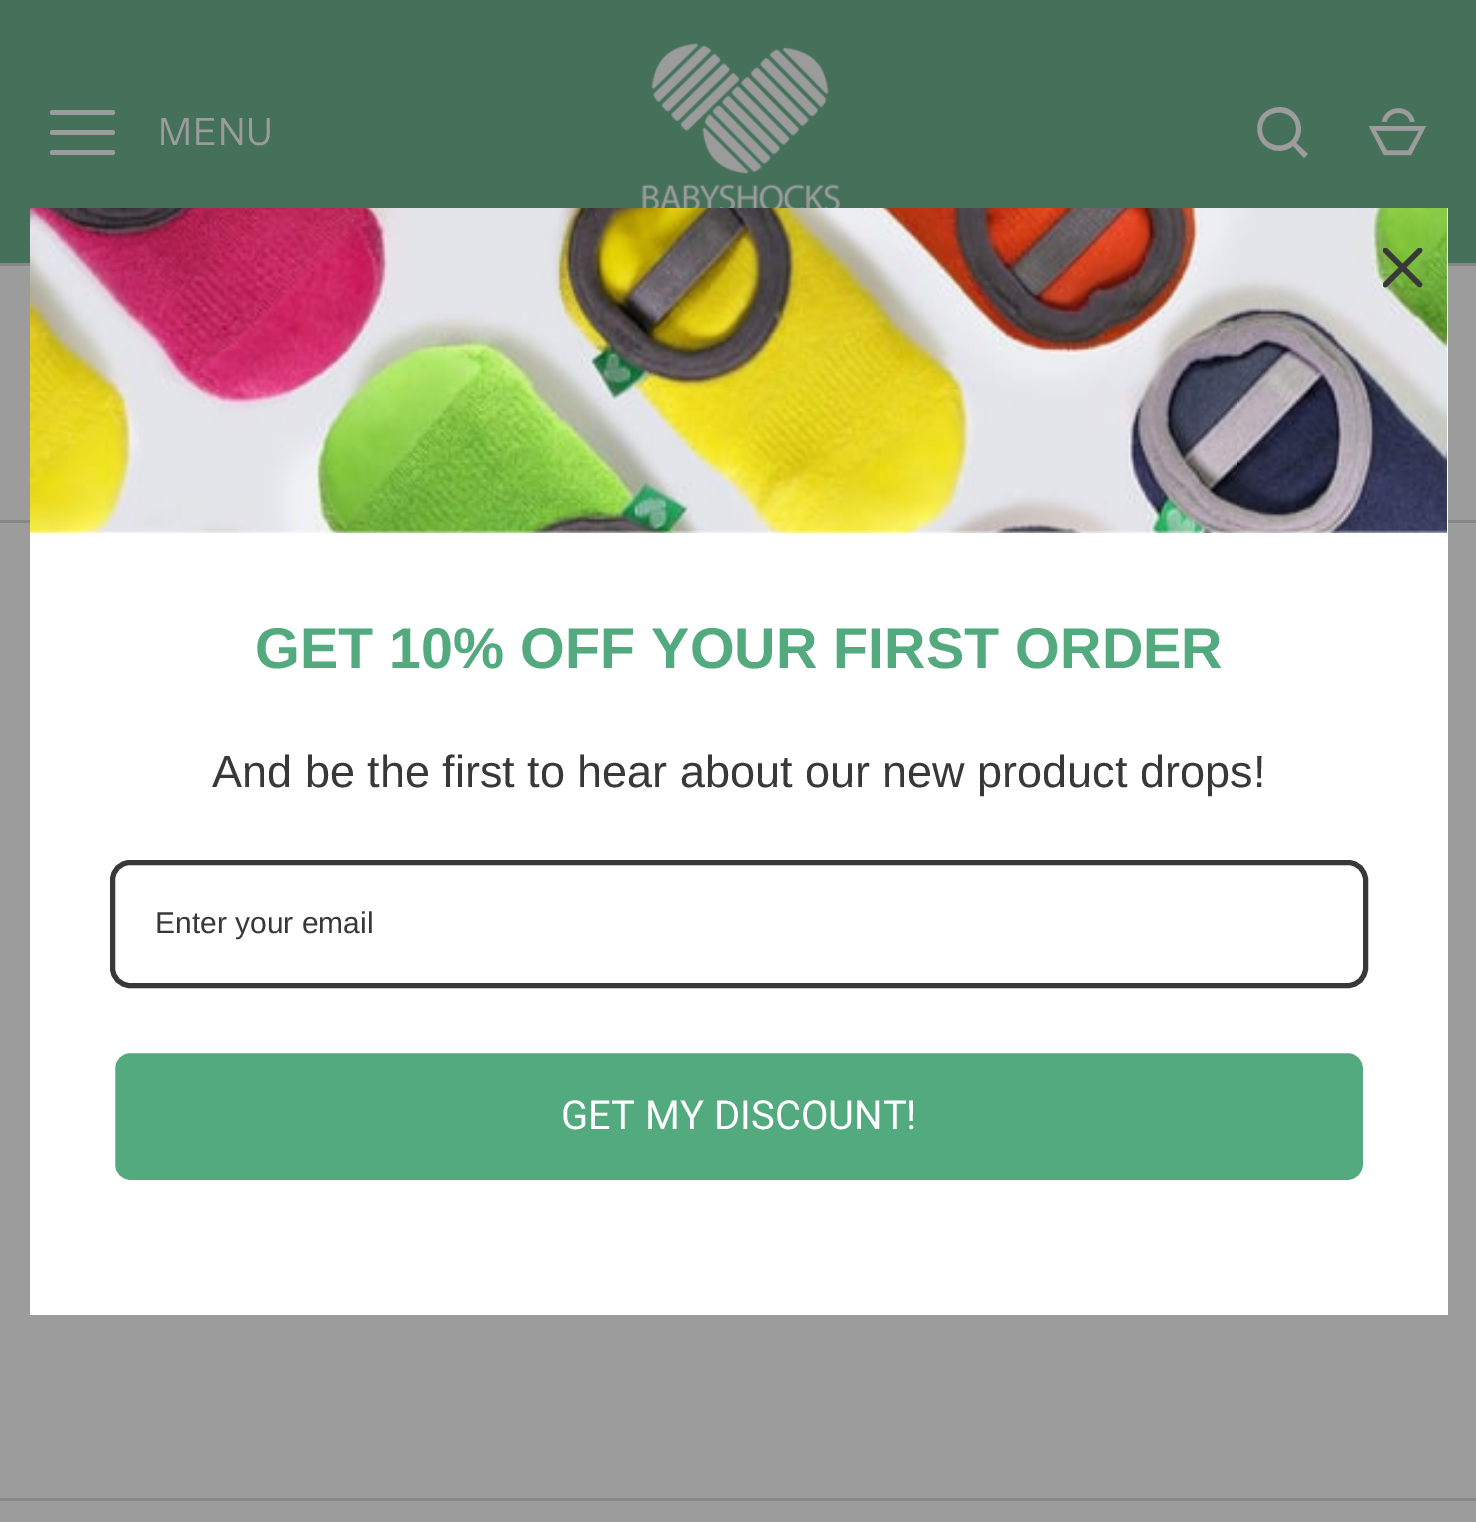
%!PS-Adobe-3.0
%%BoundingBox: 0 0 1476 1522
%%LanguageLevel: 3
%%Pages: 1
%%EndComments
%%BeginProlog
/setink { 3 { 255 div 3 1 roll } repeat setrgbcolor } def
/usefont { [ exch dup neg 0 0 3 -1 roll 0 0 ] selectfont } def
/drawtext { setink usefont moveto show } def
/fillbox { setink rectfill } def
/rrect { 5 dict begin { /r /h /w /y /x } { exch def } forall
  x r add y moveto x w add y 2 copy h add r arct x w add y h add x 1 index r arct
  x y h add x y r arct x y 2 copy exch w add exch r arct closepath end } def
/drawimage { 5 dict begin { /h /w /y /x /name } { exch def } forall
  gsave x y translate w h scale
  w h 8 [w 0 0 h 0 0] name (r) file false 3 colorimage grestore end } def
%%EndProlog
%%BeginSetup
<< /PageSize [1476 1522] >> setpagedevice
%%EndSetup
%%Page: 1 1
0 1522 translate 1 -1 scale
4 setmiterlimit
0 0 1476 1522 156 156 156 fillbox
0 0 1476 263 69 113 91 fillbox
0 263 1476 3 135 135 134 fillbox
156 156 156 setink
50 110 65 5 2.5 rrect fill
50 130 65 5 2.5 rrect fill
50 150 65 5 2.5 rrect fill
/InstrumentSans-Regular 37.5 usefont
158 145 moveto 1 0 (MENU) ashow
(assets/img1.rgb) 642 43 198 165 drawimage
1308 154 moveto 1296 143 lineto 1310 125 1292 100 1271 109 curveto 1265 111 1261 115 1259 120 curveto 1256 127 1257 135 1261 141 curveto 1268 152 1283 154 1293 146 curveto 1304 158 lineto closepath 1262 129 moveto 1262 107 1296 107 1296 129 curveto 1296 151 1262 151 1262 129 curveto closepath fill
(assets/img2.rgb) 1368 108 59 48 drawimage
0 520 1476 3 135 135 134 fillbox
0 1498 1476 3 135 135 134 fillbox
30 208 1418 1107 255 255 255 fillbox
(assets/img4.rgb) 30 208 1417 325 drawimage
(assets/img3.rgb) 1383 248 40 40 drawimage
(GET 10% OFF YOUR FIRST ORDER) 255 668 /LiberationSans-Bold 57.5 82 170 126 drawtext
(And be the first to hear about our new product drops!) 212 787 /LiberationSans-Regular 45 56 56 56 drawtext
5 setlinewidth
112.5 862.5 1253 123 17.5 rrect stroke
(Enter your email) 155 933 /LiberationSans-Regular 30 56 56 56 drawtext
82 170 126 setink
112.5 1050.5 1253 132 17.5 rrect gsave fill grestore
255 255 255 setink
stroke
(GET MY DISCOUNT!) 561 1129 /Roboto-Regular 40 255 255 255 drawtext
showpage
%%EOF
